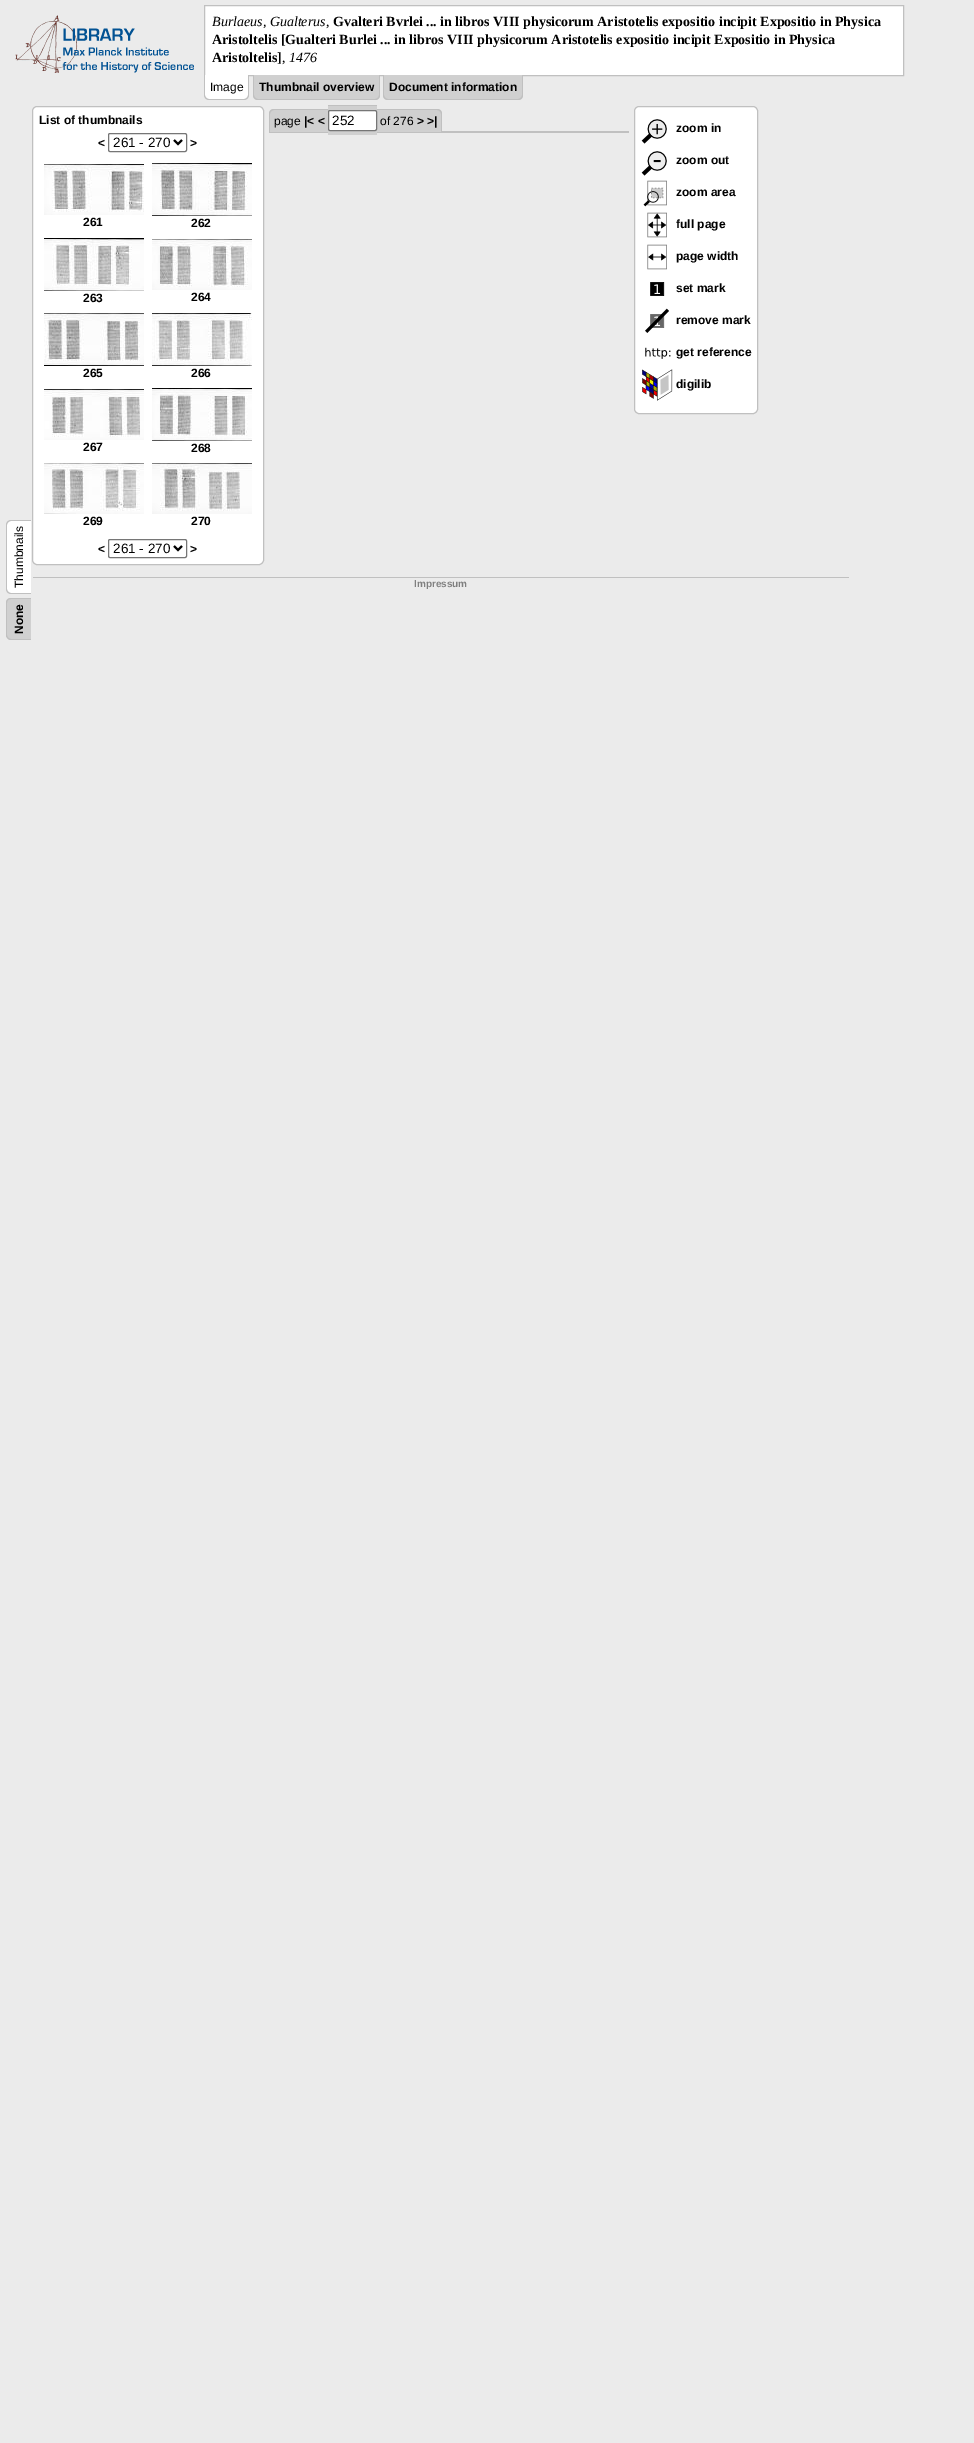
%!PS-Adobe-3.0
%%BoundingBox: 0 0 974 2443
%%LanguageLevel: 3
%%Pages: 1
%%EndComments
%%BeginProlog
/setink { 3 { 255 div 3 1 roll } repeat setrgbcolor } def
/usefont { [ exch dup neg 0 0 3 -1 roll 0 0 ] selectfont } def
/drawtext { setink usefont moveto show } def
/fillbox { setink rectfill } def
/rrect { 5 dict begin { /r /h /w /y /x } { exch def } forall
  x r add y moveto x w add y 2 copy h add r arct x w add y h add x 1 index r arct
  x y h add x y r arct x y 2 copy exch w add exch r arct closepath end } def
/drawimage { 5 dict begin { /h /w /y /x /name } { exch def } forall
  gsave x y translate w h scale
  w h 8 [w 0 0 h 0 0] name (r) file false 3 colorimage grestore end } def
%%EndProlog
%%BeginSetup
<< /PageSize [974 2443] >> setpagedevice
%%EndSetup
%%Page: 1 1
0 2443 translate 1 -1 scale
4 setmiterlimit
0 0 974 2443 235 235 235 fillbox
(assets/img1.rgb) 15 15 179 58 drawimage
255 255 255 setink
204.5 5.5 moveto 903.5 5.5 lineto 903.5 75.5 lineto 204.5 75.5 lineto closepath gsave fill grestore
192 192 192 setink
stroke
(Burlaeus, Gualterus) 212 26 /LiberationSerif-Italic 14 0 0 0 drawtext
(,) 326 26 /LiberationSerif-Regular 14 0 0 0 drawtext
(Gvalteri Bvrlei ... in libros VIII physicorum Aristotelis expositio incipit Expositio in Physica) 333 26 /LiberationSerif-Bold 14 0 0 0 drawtext
(Aristoltelis [Gualteri Burlei ... in libros VIII physicorum Aristotelis expositio incipit Expositio in Physica) 212 44 /LiberationSerif-Bold 14 0 0 0 drawtext
(Aristoltelis]) 212 62 /LiberationSerif-Bold 14 0 0 0 drawtext
(,) 282 62 /LiberationSerif-Regular 14 0 0 0 drawtext
(1476) 289 62 /LiberationSerif-Italic 14 0 0 0 drawtext
255 255 255 setink
204 75 moveto 249 75 lineto 249 95 lineto 249 98 247 100 244 100 curveto 209 100 lineto 206 100 204 98 204 95 curveto closepath fill
192 192 192 setink
204 75 moveto 249 75 lineto 249 95 lineto 249 98 247 100 244 100 curveto 209 100 lineto 206 100 204 98 204 95 curveto closepath 205 75 moveto 248 75 lineto 248 95 lineto 248 97 246 99 244 99 curveto 209 99 lineto 207 99 205 97 205 95 curveto closepath eofill
(Image) 210 91 /LiberationSans-Regular 12 0 0 0 drawtext
208 208 208 setink
253 75 moveto 380 75 lineto 380 95 lineto 380 98 378 100 375 100 curveto 258 100 lineto 255 100 253 98 253 95 curveto closepath fill
192 192 192 setink
253 75 moveto 380 75 lineto 380 95 lineto 380 98 378 100 375 100 curveto 258 100 lineto 255 100 253 98 253 95 curveto closepath 254 75 moveto 379 75 lineto 379 95 lineto 379 97 377 99 375 99 curveto 258 99 lineto 256 99 254 97 254 95 curveto closepath eofill
(Thumbnail overview) 259 91 /LiberationSans-Bold 12 0 0 0 drawtext
208 208 208 setink
383 75 moveto 523 75 lineto 523 95 lineto 523 98 521 100 518 100 curveto 388 100 lineto 385 100 383 98 383 95 curveto closepath fill
192 192 192 setink
383 75 moveto 523 75 lineto 523 95 lineto 523 98 521 100 518 100 curveto 388 100 lineto 385 100 383 98 383 95 curveto closepath 384 75 moveto 522 75 lineto 522 95 lineto 522 97 520 99 518 99 curveto 388 99 lineto 386 99 384 97 384 95 curveto closepath eofill
(Document information) 389 91 /LiberationSans-Bold 12 0 0 0 drawtext
255 255 255 setink
32.5 106.5 231 458 4.5 rrect gsave fill grestore
192 192 192 setink
stroke
(List of thumbnails) 39 124 /LiberationSans-Bold 12 0 0 0 drawtext
(<) 98 147 /LiberationSans-Bold 12 0 0 0 drawtext
118 118 118 setink
108.5 133.5 78 18 1.5 rrect stroke
0 0 0 setink
2 setlinewidth
174 140 moveto 178 144 lineto 182 140 lineto stroke
(261 - 270) 113 147 /LiberationSans-Regular 13.5 0 0 0 drawtext
(>) 190 147 /LiberationSans-Bold 12 0 0 0 drawtext
(assets/img2.rgb) 44 164 100 51 drawimage
(261) 83 226 /LiberationSans-Bold 12 0 0 0 drawtext
(assets/img3.rgb) 152 163 100 53 drawimage
(262) 191 227 /LiberationSans-Bold 12 0 0 0 drawtext
(assets/img4.rgb) 44 238 100 53 drawimage
(263) 83 302 /LiberationSans-Bold 12 0 0 0 drawtext
(assets/img5.rgb) 152 239 100 51 drawimage
(264) 191 301 /LiberationSans-Bold 12 0 0 0 drawtext
(assets/img6.rgb) 44 313 100 53 drawimage
(265) 83 377 /LiberationSans-Bold 12 0 0 0 drawtext
(assets/img7.rgb) 152 313 100 53 drawimage
(266) 191 377 /LiberationSans-Bold 12 0 0 0 drawtext
(assets/img8.rgb) 44 389 100 51 drawimage
(267) 83 451 /LiberationSans-Bold 12 0 0 0 drawtext
(assets/img9.rgb) 152 388 100 53 drawimage
(268) 191 452 /LiberationSans-Bold 12 0 0 0 drawtext
(assets/img10.rgb) 44 463 100 51 drawimage
(269) 83 525 /LiberationSans-Bold 12 0 0 0 drawtext
(assets/img11.rgb) 152 463 100 51 drawimage
(270) 191 525 /LiberationSans-Bold 12 0 0 0 drawtext
(<) 98 553 /LiberationSans-Bold 12 0 0 0 drawtext
118 118 118 setink
1 setlinewidth
108.5 539.5 78 18 1.5 rrect stroke
0 0 0 setink
2 setlinewidth
174 546 moveto 178 550 lineto 182 546 lineto stroke
(261 - 270) 113 553 /LiberationSans-Regular 13.5 0 0 0 drawtext
(>) 190 553 /LiberationSans-Bold 12 0 0 0 drawtext
255 255 255 setink
6 589 moveto 6 525 lineto 6 522 8 520 11 520 curveto 31 520 lineto 31 594 lineto 11 594 lineto 8 594 6 592 6 589 curveto closepath fill
192 192 192 setink
6 589 moveto 6 525 lineto 6 522 8 520 11 520 curveto 31 520 lineto 31 594 lineto 11 594 lineto 8 594 6 592 6 589 curveto closepath 7 589 moveto 7 525 lineto 7 523 9 521 11 521 curveto 31 521 lineto 31 593 lineto 11 593 lineto 9 593 7 591 7 589 curveto closepath eofill
/LiberationSans-Regular 12 usefont
0 0 0 setink
gsave 23 588 translate -90 rotate 0 0 moveto (Thumbnails) show grestore
208 208 208 setink
6 635 moveto 6 603 lineto 6 600 8 598 11 598 curveto 31 598 lineto 31 640 lineto 11 640 lineto 8 640 6 637 6 635 curveto closepath fill
192 192 192 setink
6 635 moveto 6 603 lineto 6 600 8 598 11 598 curveto 31 598 lineto 31 640 lineto 11 640 lineto 8 640 6 637 6 635 curveto closepath 7 635 moveto 7 603 lineto 7 600 9 599 11 599 curveto 31 599 lineto 31 639 lineto 11 639 lineto 9 639 7 637 7 635 curveto closepath eofill
/LiberationSans-Bold 12 usefont
0 0 0 setink
gsave 23 634 translate -90 rotate 0 0 moveto (None) show grestore
269 131 360 2 192 192 192 fillbox
208 208 208 setink
274 109 moveto 304 109 lineto 304 132 lineto 269 132 lineto 269 114 lineto 269 111 271 109 274 109 curveto closepath fill
192 192 192 setink
274 109 moveto 304 109 lineto 304 132 lineto 269 132 lineto 269 114 lineto 269 111 271 109 274 109 curveto closepath 274 110 moveto 304 110 lineto 304 132 lineto 270 132 lineto 270 114 lineto 270 112 272 110 274 110 curveto closepath eofill
304 110 10 22 208 208 208 fillbox
304 109 10 1 192 192 192 fillbox
314 109 14 23 208 208 208 fillbox
314 109 14 1 192 192 192 fillbox
328 106 49 29 208 208 208 fillbox
328 105 49 1 192 192 192 fillbox
377 109 3 23 208 208 208 fillbox
377 109 40 1 192 192 192 fillbox
380 110 37 22 208 208 208 fillbox
417 109 10 23 208 208 208 fillbox
417 109 10 1 192 192 192 fillbox
208 208 208 setink
427 109 moveto 437 109 lineto 440 109 442 111 442 114 curveto 442 132 lineto 427 132 lineto closepath fill
192 192 192 setink
427 109 moveto 437 109 lineto 440 109 442 111 442 114 curveto 442 132 lineto 427 132 lineto closepath 427 110 moveto 437 110 lineto 439 110 441 112 441 114 curveto 441 132 lineto 427 132 lineto closepath eofill
(page) 274 125 /LiberationSans-Regular 12 0 0 0 drawtext
(|< <) 304 125 /LiberationSans-Bold 12 0 0 0 drawtext
255 255 255 setink
328.5 110.5 48 20 1.5 rrect gsave fill grestore
118 118 118 setink
1 setlinewidth
stroke
(252) 332 125 /LiberationSans-Regular 13.5 0 0 0 drawtext
(of 276) 380 125 /LiberationSans-Regular 12 0 0 0 drawtext
(> >|) 417 125 /LiberationSans-Bold 12 0 0 0 drawtext
255 255 255 setink
634.5 106.5 123 307 4.5 rrect gsave fill grestore
192 192 192 setink
stroke
(assets/img12.rgb) 641 119 26 25 drawimage
(zoom in) 676 132 /LiberationSans-Bold 12 0 0 0 drawtext
(assets/img13.rgb) 641 151 26 25 drawimage
(zoom out) 676 164 /LiberationSans-Bold 12 0 0 0 drawtext
(assets/img14.rgb) 643 180 24 27 drawimage
(zoom area) 676 196 /LiberationSans-Bold 12 0 0 0 drawtext
(assets/img15.rgb) 647 212 20 26 drawimage
(full page) 676 228 /LiberationSans-Bold 12 0 0 0 drawtext
(assets/img16.rgb) 647 244 20 26 drawimage
(page width) 676 260 /LiberationSans-Bold 12 0 0 0 drawtext
(assets/img17.rgb) 650 282 15 14 drawimage
(set mark) 676 292 /LiberationSans-Bold 12 0 0 0 drawtext
(assets/img18.rgb) 645 308 24 25 drawimage
(remove mark) 676 324 /LiberationSans-Bold 12 0 0 0 drawtext
(assets/img19.rgb) 645 347 26 12 drawimage
(get reference) 676 356 /LiberationSans-Bold 12 0 0 0 drawtext
(assets/img20.rgb) 642 369 31 32 drawimage
(digilib) 676 388 /LiberationSans-Bold 12 0 0 0 drawtext
33 577 816 1 192 192 192 fillbox
(Impressum) 414 587 /LiberationSans-Bold 10 128 128 128 drawtext
showpage
%%EOF
